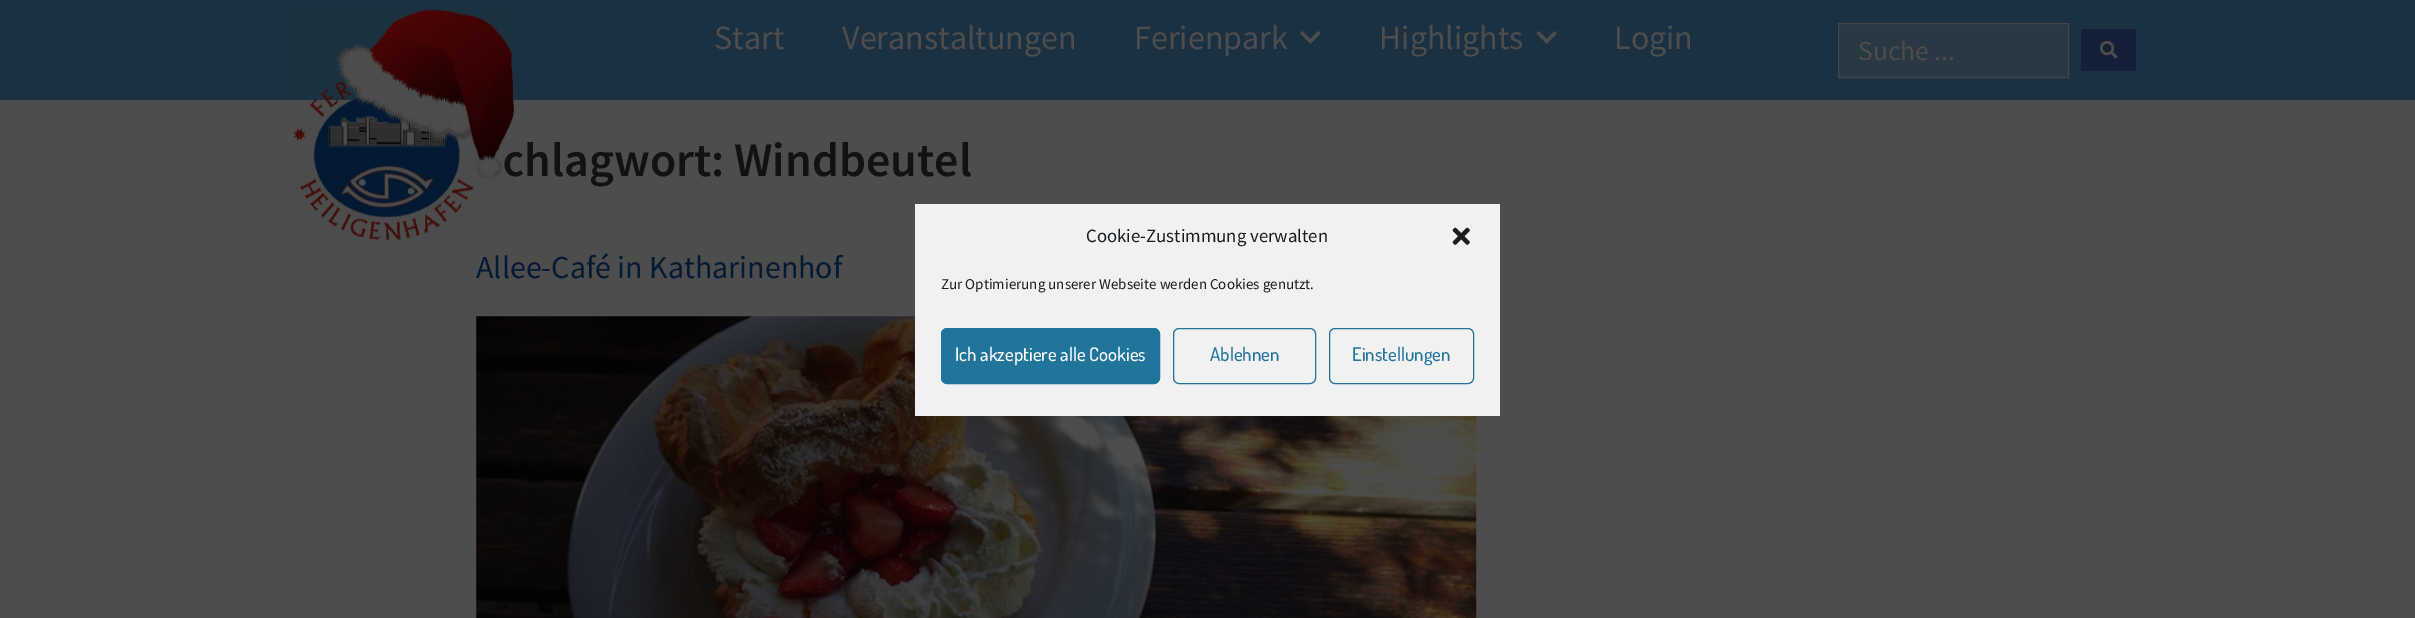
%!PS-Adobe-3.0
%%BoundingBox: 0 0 2415 618
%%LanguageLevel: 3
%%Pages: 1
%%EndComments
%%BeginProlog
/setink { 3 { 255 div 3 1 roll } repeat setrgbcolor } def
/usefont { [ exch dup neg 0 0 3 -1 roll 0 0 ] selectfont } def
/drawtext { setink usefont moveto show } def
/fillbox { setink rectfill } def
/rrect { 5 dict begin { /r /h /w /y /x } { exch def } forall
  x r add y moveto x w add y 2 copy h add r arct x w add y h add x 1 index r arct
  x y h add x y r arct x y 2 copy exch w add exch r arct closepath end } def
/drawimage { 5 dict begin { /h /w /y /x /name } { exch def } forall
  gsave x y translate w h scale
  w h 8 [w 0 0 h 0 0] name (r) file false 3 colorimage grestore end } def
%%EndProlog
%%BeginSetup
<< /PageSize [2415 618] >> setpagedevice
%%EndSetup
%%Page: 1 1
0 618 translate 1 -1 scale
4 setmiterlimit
0 0 2415 618 77 77 77 fillbox
0 0 2415 100 27 49 65 fillbox
(chlagwort: Windbeutel) 502 176 /SourceSansPro-SemiBold 48 18 18 20 drawtext
(assets/img1.rgb) 293 9 221 232 drawimage
(Start) 714 49 /SourceSansPro-Regular 34 77 77 77 drawtext
(Veranstaltungen) 842 49 /SourceSansPro-Regular 34 77 77 77 drawtext
(Ferienpark) 1134 49 /SourceSansPro-Regular 34 77 77 77 drawtext
(assets/img2.rgb) 1300 31 21 13 drawimage
(Highlights) 1379 49 /SourceSansPro-Regular 34 77 77 77 drawtext
(assets/img3.rgb) 1536 31 21 13 drawimage
(Login) 1614 49 /SourceSansPro-Regular 34 77 77 77 drawtext
41 57 68 setink
1838.5 23.5 moveto 2068.5 23.5 lineto 2068.5 77.5 lineto 1838.5 77.5 lineto closepath gsave fill grestore
68 69 71 setink
stroke
(Suche ...) 1858 60 /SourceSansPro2-Regular 27.5 77 77 77 drawtext
2081 29 55 42 20 31 58 fillbox
(assets/img4.rgb) 2100 40 18 19 drawimage
(Allee-Café in Katharinenhof) 476 278 /SourceSansPro-Regular 32 3 26 52 drawtext
(assets/img5.rgb) 476 316 1001 302 drawimage
915 204 585 212 241 241 241 fillbox
(Cookie-Zustimmung verwalten) 1086 242 /SourceSansPro-Regular 18.75 25 30 35 drawtext
(assets/img6.rgb) 1452 227 18 18 drawimage
(Zur Optimierung unserer Webseite werden Cookies genutzt.) 941 289 /SourceSansPro-Regular 15 25 30 35 drawtext
33 117 155 setink
941.5 328.5 218 55 5.5 rrect gsave fill grestore
stroke
(Ich akzeptiere alle Cookies) 955 361 /Dosis-Medium 18.75 255 255 255 drawtext
33 117 155 setink
1173.5 328.5 142 55 5.5 rrect stroke
(Ablehnen) 1210 361 /Dosis-Medium 18.75 33 117 155 drawtext
1329.5 328.5 144 55 5.5 rrect stroke
(Einstellungen) 1352 361 /Dosis-Medium 18.75 33 117 155 drawtext
showpage
%%EOF
